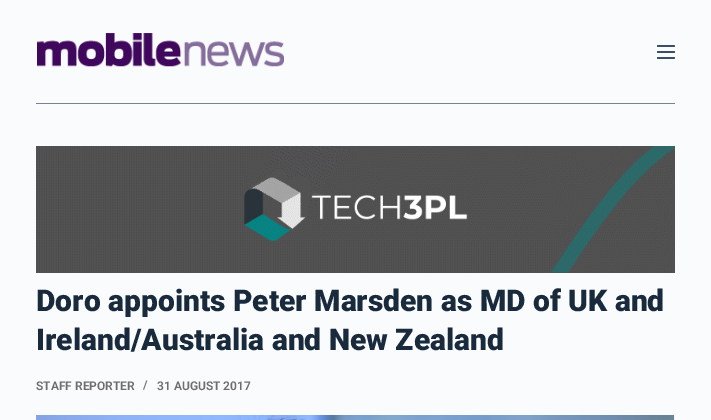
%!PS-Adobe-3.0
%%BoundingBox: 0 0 711 420
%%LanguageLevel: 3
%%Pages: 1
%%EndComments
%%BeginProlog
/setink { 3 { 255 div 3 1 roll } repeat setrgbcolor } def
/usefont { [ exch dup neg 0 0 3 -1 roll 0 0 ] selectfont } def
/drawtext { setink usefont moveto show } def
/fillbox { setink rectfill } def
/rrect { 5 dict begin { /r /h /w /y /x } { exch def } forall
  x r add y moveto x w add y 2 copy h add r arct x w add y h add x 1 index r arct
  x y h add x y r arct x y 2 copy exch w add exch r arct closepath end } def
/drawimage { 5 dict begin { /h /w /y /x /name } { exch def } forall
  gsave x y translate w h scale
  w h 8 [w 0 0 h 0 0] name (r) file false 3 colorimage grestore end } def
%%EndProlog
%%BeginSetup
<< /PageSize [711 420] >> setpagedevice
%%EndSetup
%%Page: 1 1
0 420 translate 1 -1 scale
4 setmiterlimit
0 0 711 420 250 251 252 fillbox
36 103 639 1 120 131 143 fillbox
(assets/img1.rgb) 37 33 247 34 drawimage
58 79 102 setink
657 45 18 2 1 rrect fill
657 51 18 2 1 rrect fill
657 57 18 2 1 rrect fill
(assets/img2.rgb) 36 146 639 127 drawimage
(Doro appoints Peter Marsden as MD of UK and) 36 311 /Roboto-Black 30 25 42 61 drawtext
(Ireland/Australia and New Zealand) 36 350 /Roboto-Black 30 25 42 61 drawtext
(STAFF REPORTER) 36 390 /Roboto-SemiBold 12 109 109 109 drawtext
(/) 143 389 /Roboto-SemiBold 12 109 109 109 drawtext
(31 AUGUST 2017) 157 390 /Roboto-SemiBold 12 109 109 109 drawtext
(assets/img3.rgb) 36 415 639 5 drawimage
showpage
%%EOF
